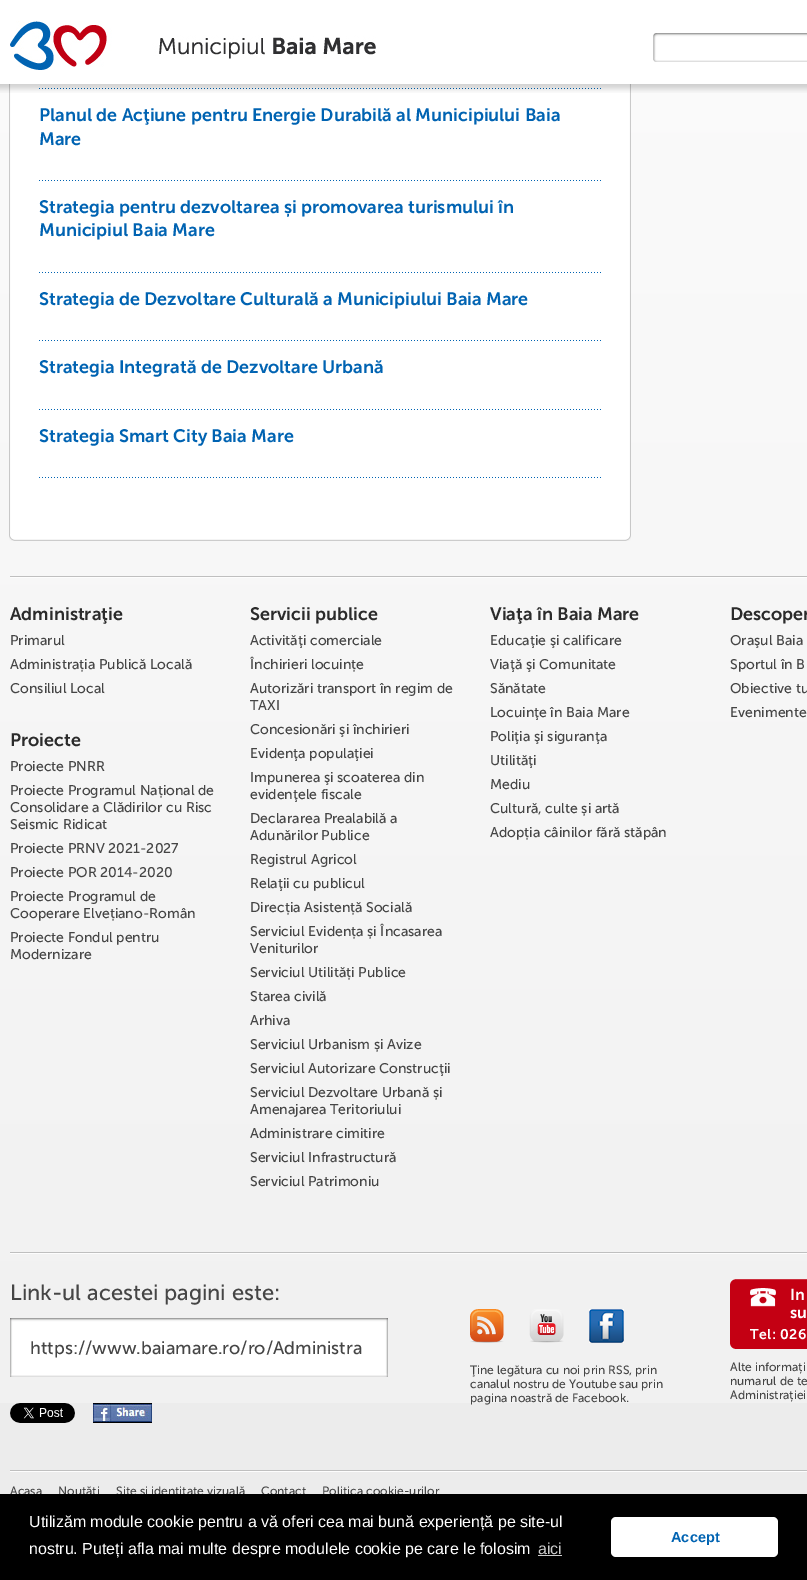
%!PS-Adobe-3.0
%%BoundingBox: 0 0 807 1580
%%LanguageLevel: 3
%%Pages: 1
%%EndComments
%%BeginProlog
/setink { 3 { 255 div 3 1 roll } repeat setrgbcolor } def
/usefont { [ exch dup neg 0 0 3 -1 roll 0 0 ] selectfont } def
/drawtext { setink usefont moveto show } def
/fillbox { setink rectfill } def
/rrect { 5 dict begin { /r /h /w /y /x } { exch def } forall
  x r add y moveto x w add y 2 copy h add r arct x w add y h add x 1 index r arct
  x y h add x y r arct x y 2 copy exch w add exch r arct closepath end } def
/drawimage { 5 dict begin { /h /w /y /x /name } { exch def } forall
  gsave x y translate w h scale
  w h 8 [w 0 0 h 0 0] name (r) file false 3 colorimage grestore end } def
%%EndProlog
%%BeginSetup
<< /PageSize [807 1580] >> setpagedevice
%%EndSetup
%%Page: 1 1
0 1580 translate 1 -1 scale
4 setmiterlimit
0 0 807 1580 236 236 236 fillbox
(assets/img1.rgb) 0 84 807 1319 drawimage
(assets/img5.rgb) 9 84 622 450 drawimage
(assets/img6.rgb) 39 88 562 1 drawimage
(assets/img2.rgb) 0 0 807 93 drawimage
(assets/img3.rgb) 10 21 366 49 drawimage
(assets/img4.rgb) 653 33 154 29 drawimage
(assets/img6.rgb) 39 180 562 1 drawimage
(Planul de Acţiune pentru Energie Durabilă al Municipiului Baia) 39 121 /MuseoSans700-SemiBold 18 0 99 178 drawtext
(Mare) 39 145 /MuseoSans700-SemiBold 18 0 99 178 drawtext
(assets/img6.rgb) 39 272 562 1 drawimage
(Strategia pentru dezvoltarea și promovarea turismului în) 39 213 /MuseoSans700-SemiBold 18 0 99 178 drawtext
(Municipiul Baia Mare) 39 236 /MuseoSans700-SemiBold 18 0 99 178 drawtext
(assets/img6.rgb) 39 340 562 1 drawimage
(Strategia de Dezvoltare Culturală a Municipiului Baia Mare) 39 305 /MuseoSans700-SemiBold 18 0 99 178 drawtext
(assets/img6.rgb) 39 409 562 1 drawimage
(Strategia Integrată de Dezvoltare Urbană) 39 373 /MuseoSans700-SemiBold 18 0 99 178 drawtext
(assets/img6.rgb) 39 477 562 1 drawimage
(Strategia Smart City Baia Mare) 39 442 /MuseoSans700-SemiBold 18 0 99 178 drawtext
(assets/img7.rgb) 9 534 622 7 drawimage
(assets/img8.rgb) 10 576 797 2 drawimage
(Administraţie) 10 620 /MuseoSans700-SemiBold 18 43 43 43 drawtext
(Primarul) 10 645 /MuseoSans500-Regular 14 69 69 69 drawtext
(Administrația Publică Locală) 10 669 /MuseoSans500-Regular 14 69 69 69 drawtext
(Consiliul Local) 10 693 /MuseoSans500-Regular 14 69 69 69 drawtext
(Proiecte) 10 746 /MuseoSans700-SemiBold 18 43 43 43 drawtext
(Proiecte PNRR) 10 771 /MuseoSans500-Regular 14 69 69 69 drawtext
(Proiecte Programul Național de) 10 795 /MuseoSans500-Regular 14 69 69 69 drawtext
(Consolidare a Clădirilor cu Risc) 10 812 /MuseoSans500-Regular 14 69 69 69 drawtext
(Seismic Ridicat) 10 829 /MuseoSans500-Regular 14 69 69 69 drawtext
(Proiecte PRNV 2021-2027) 10 853 /MuseoSans500-Regular 14 69 69 69 drawtext
(Proiecte POR 2014-2020) 10 877 /MuseoSans500-Regular 14 69 69 69 drawtext
(Proiecte Programul de) 10 901 /MuseoSans500-Regular 14 69 69 69 drawtext
(Cooperare Elvețiano-Român) 10 918 /MuseoSans500-Regular 14 69 69 69 drawtext
(Proiecte Fondul pentru) 10 942 /MuseoSans500-Regular 14 69 69 69 drawtext
(Modernizare) 10 959 /MuseoSans500-Regular 14 69 69 69 drawtext
(Servicii publice) 250 620 /MuseoSans700-SemiBold 18 43 43 43 drawtext
(Activităţi comerciale) 250 645 /MuseoSans500-Regular 14 69 69 69 drawtext
(Închirieri locuințe) 250 669 /MuseoSans500-Regular 14 69 69 69 drawtext
(Autorizări transport în regim de) 250 693 /MuseoSans500-Regular 14 69 69 69 drawtext
(TAXI) 250 710 /MuseoSans500-Regular 14 69 69 69 drawtext
(Concesionări şi închirieri) 250 734 /MuseoSans500-Regular 14 69 69 69 drawtext
(Evidenţa populaţiei) 250 758 /MuseoSans500-Regular 14 69 69 69 drawtext
(Impunerea şi scoaterea din) 250 782 /MuseoSans500-Regular 14 69 69 69 drawtext
(evidenţele fiscale) 250 799 /MuseoSans500-Regular 14 69 69 69 drawtext
(Declararea Prealabilă a) 250 823 /MuseoSans500-Regular 14 69 69 69 drawtext
(Adunărilor Publice) 250 840 /MuseoSans500-Regular 14 69 69 69 drawtext
(Registrul Agricol) 250 864 /MuseoSans500-Regular 14 69 69 69 drawtext
(Relaţii cu publicul) 250 888 /MuseoSans500-Regular 14 69 69 69 drawtext
(Direcția Asistență Socială) 250 912 /MuseoSans500-Regular 14 69 69 69 drawtext
(Serviciul Evidența și Încasarea) 250 936 /MuseoSans500-Regular 14 69 69 69 drawtext
(Veniturilor) 250 953 /MuseoSans500-Regular 14 69 69 69 drawtext
(Serviciul Utilități Publice) 250 977 /MuseoSans500-Regular 14 69 69 69 drawtext
(Starea civilă) 250 1001 /MuseoSans500-Regular 14 69 69 69 drawtext
(Arhiva) 250 1025 /MuseoSans500-Regular 14 69 69 69 drawtext
(Serviciul Urbanism și Avize) 250 1049 /MuseoSans500-Regular 14 69 69 69 drawtext
(Serviciul Autorizare Construcţii) 250 1073 /MuseoSans500-Regular 14 69 69 69 drawtext
(Serviciul Dezvoltare Urbană și) 250 1097 /MuseoSans500-Regular 14 69 69 69 drawtext
(Amenajarea Teritoriului) 250 1114 /MuseoSans500-Regular 14 69 69 69 drawtext
(Administrare cimitire) 250 1138 /MuseoSans500-Regular 14 69 69 69 drawtext
(Serviciul Infrastructură) 250 1162 /MuseoSans500-Regular 14 69 69 69 drawtext
(Serviciul Patrimoniu) 250 1186 /MuseoSans500-Regular 14 69 69 69 drawtext
(Viaţa în Baia Mare) 490 620 /MuseoSans700-SemiBold 18 43 43 43 drawtext
(Educaţie şi calificare) 490 645 /MuseoSans500-Regular 14 69 69 69 drawtext
(Viaţă şi Comunitate) 490 669 /MuseoSans500-Regular 14 69 69 69 drawtext
(Sănătate) 490 693 /MuseoSans500-Regular 14 69 69 69 drawtext
(Locuinţe în Baia Mare) 490 717 /MuseoSans500-Regular 14 69 69 69 drawtext
(Poliţia şi siguranţa) 490 741 /MuseoSans500-Regular 14 69 69 69 drawtext
(Utilităţi) 490 765 /MuseoSans500-Regular 14 69 69 69 drawtext
(Mediu) 490 789 /MuseoSans500-Regular 14 69 69 69 drawtext
(Cultură, culte și artă) 490 813 /MuseoSans500-Regular 14 69 69 69 drawtext
(Adopția câinilor fără stăpân) 490 837 /MuseoSans500-Regular 14 69 69 69 drawtext
(Descoper) 730 620 /MuseoSans700-SemiBold 18 43 43 43 drawtext
(Oraşul Baia) 730 645 /MuseoSans500-Regular 14 69 69 69 drawtext
(Sportul în B) 730 669 /MuseoSans500-Regular 14 69 69 69 drawtext
(Obiective tu) 730 693 /MuseoSans500-Regular 14 69 69 69 drawtext
(Evenimente) 730 717 /MuseoSans500-Regular 14 69 69 69 drawtext
(assets/img8.rgb) 10 1252 797 2 drawimage
(Link-ul acestei pagini este:) 10 1300 /MuseoSans500-Regular 22 69 69 69 drawtext
(assets/img9.rgb) 10 1318 378 59 drawimage
(https://www.baiamare.ro/ro/Administra) 30 1354 /MuseoSans500-Regular 18 69 69 69 drawtext
(assets/img10.rgb) 10 1403 65 20 drawimage
(assets/img11.rgb) 93 1403 59 20 drawimage
(assets/img12.rgb) 470 1309 34 34 drawimage
(assets/img13.rgb) 529 1309 35 34 drawimage
(assets/img14.rgb) 589 1309 35 34 drawimage
(Ţine legătura cu noi prin RSS, prin) 470 1374 /MuseoSans500-Regular 12 69 69 69 drawtext
(canalul nostru de Youtube sau prin) 470 1388 /MuseoSans500-Regular 12 69 69 69 drawtext
(pagina noastră de Facebook.) 470 1402 /MuseoSans500-Regular 12 69 69 69 drawtext
(assets/img15.rgb) 730 1279 77 42 drawimage
(In) 790 1300 /MuseoSans700-SemiBold 16 255 255 255 drawtext
(su) 790 1318 /MuseoSans700-SemiBold 16 255 255 255 drawtext
(assets/img16.rgb) 730 1321 77 28 drawimage
/MuseoSans700-SemiBold 14 usefont
750 1339 moveto 0.5 0 (Tel: 026) ashow
(Alte informați) 730 1371 /MuseoSans500-Regular 12 69 69 69 drawtext
(numarul de te) 730 1385 /MuseoSans500-Regular 12 69 69 69 drawtext
(Administrației) 730 1399 /MuseoSans500-Regular 12 69 69 69 drawtext
(assets/img8.rgb) 10 1470 797 2 drawimage
(Acasa) 10 1495 /MuseoSans500-Regular 12 69 69 69 drawtext
(Noutăţi) 58 1495 /MuseoSans500-Regular 12 69 69 69 drawtext
(Site și identitate vizuală) 116 1495 /MuseoSans500-Regular 12 69 69 69 drawtext
(Contact) 261 1495 /MuseoSans500-Regular 12 69 69 69 drawtext
(Politica cookie-urilor) 322 1495 /MuseoSans500-Regular 12 69 69 69 drawtext
0 1494 807 86 0 0 0 fillbox
(Utilizăm module cookie pentru a vă oferi cea mai bună experiență pe site-ul) 29 1527 /LiberationSans-Regular 16 255 255 255 drawtext
(nostru. Puteți afla mai multe despre modulele cookie pe care le folosim) 29 1554 /LiberationSans-Regular 16 255 255 255 drawtext
(aici) 538 1554 /LiberationSans-Regular 16 204 204 204 drawtext
538 1555 24 1 204 204 204 fillbox
255 255 255 setink
611 1517 167 40 5 rrect fill
(Accept) 671 1542 /LiberationSans-Bold 14.5 0 99 178 drawtext
showpage
%%EOF
